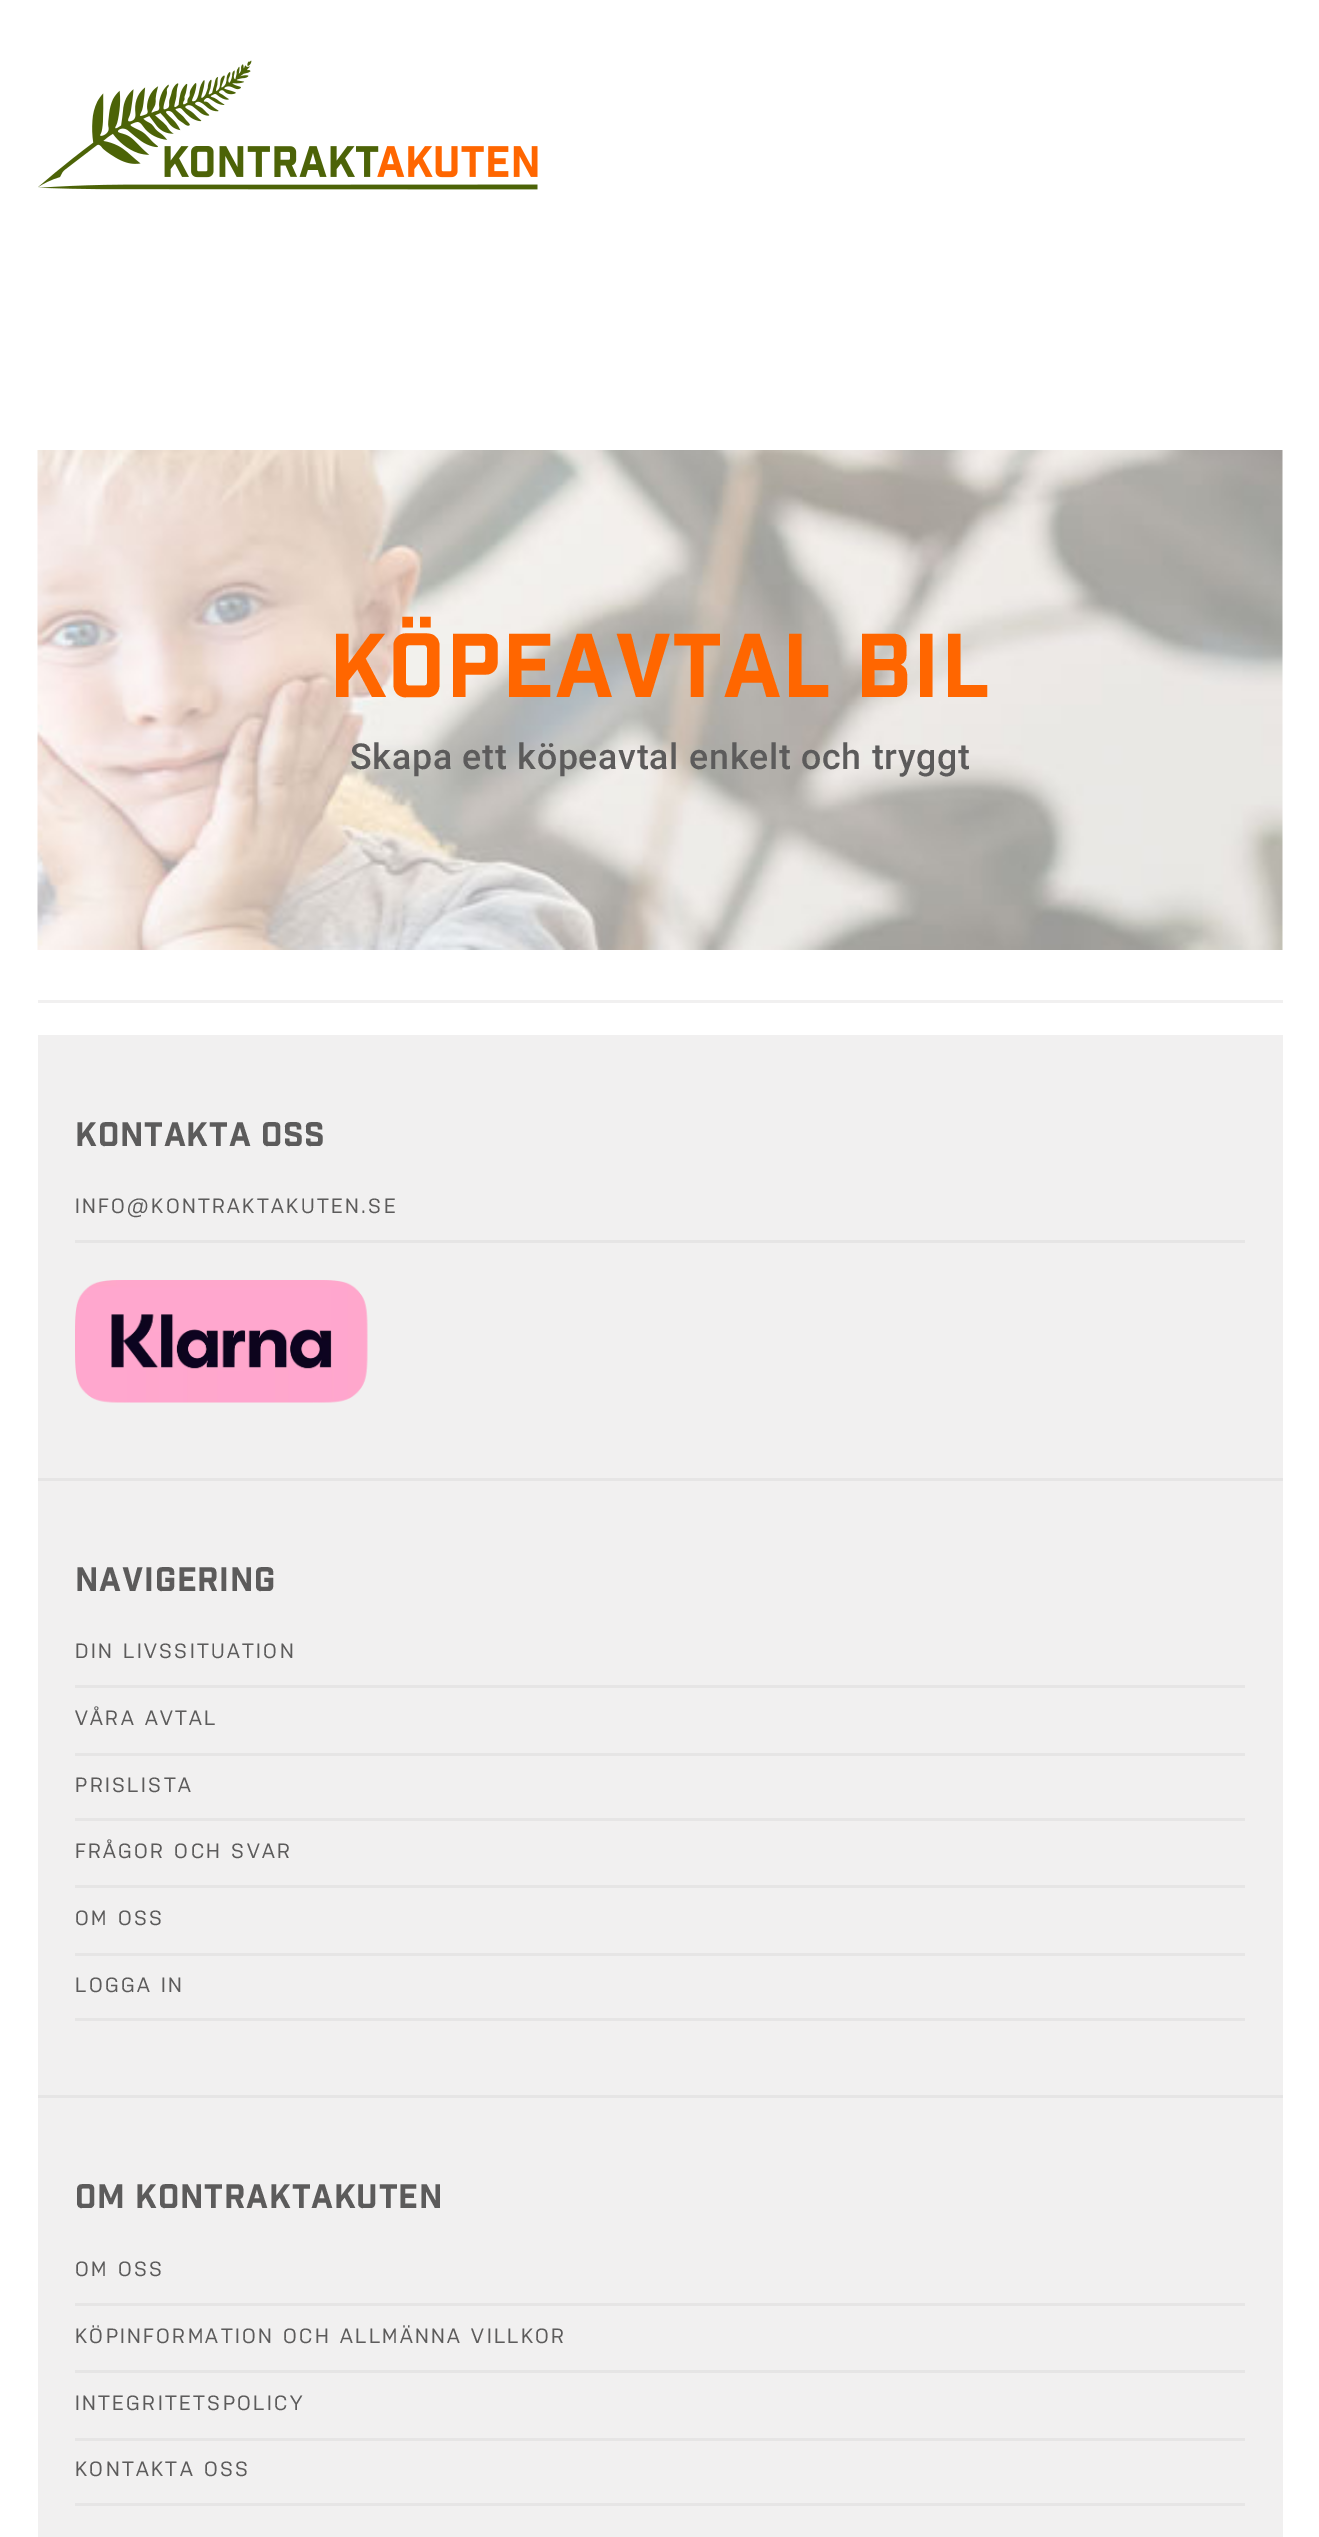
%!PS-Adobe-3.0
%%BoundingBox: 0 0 1319 2537
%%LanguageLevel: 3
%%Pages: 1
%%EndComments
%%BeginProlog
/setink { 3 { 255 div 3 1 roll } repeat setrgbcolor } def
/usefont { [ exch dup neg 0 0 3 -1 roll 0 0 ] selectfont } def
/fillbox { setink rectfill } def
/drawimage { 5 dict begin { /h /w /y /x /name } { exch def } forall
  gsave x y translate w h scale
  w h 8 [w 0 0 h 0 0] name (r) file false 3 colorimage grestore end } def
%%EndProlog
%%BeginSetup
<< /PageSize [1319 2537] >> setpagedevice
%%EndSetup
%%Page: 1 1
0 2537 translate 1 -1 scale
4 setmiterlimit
0 0 1319 2537 255 255 255 fillbox
(assets/img1.rgb) 38 60 500 130 drawimage
(assets/img2.rgb) 37 450 1246 500 drawimage
/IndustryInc-Regular 88 usefont
255 102 0 setink
329 697 moveto 0.75 0 (Köpeavtal Bil) ashow
/Roboto-Medium 35.75 usefont
92 91 91 setink
350 769 moveto 0.75 0 (Skapa ett köpeavtal enkelt och tryggt) ashow
38 1000 1245 3 241 240 240 fillbox
38 1035 1245 1502 241 240 240 fillbox
38 1478 1245 3 230 229 229 fillbox
/IndustryInc-Regular 33 usefont
92 91 91 setink
75 1146 moveto 0.75 0 (Kontakta oss) ashow
75 1240 1170 3 230 229 229 fillbox
/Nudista-Medium 20.6 usefont
92 91 91 setink
75 1213 moveto 2.5 0 (INFO@KONTRAKTAKUTEN.SE) ashow
(assets/img3.rgb) 75 1280 293 123 drawimage
38 2095 1245 3 230 229 229 fillbox
/IndustryInc-Regular 33 usefont
92 91 91 setink
75 1591 moveto 0.75 0 (Navigering) ashow
75 1685 1170 3 230 229 229 fillbox
/Nudista-Medium 20.6 usefont
92 91 91 setink
75 1658 moveto 2.5 0 (DIN LIVSSITUATION) ashow
75 1753 1170 3 230 229 229 fillbox
92 91 91 setink
75 1725 moveto 2.5 0 (VÅRA AVTAL) ashow
75 1818 1170 3 230 229 229 fillbox
92 91 91 setink
75 1792 moveto 2.5 0 (PRISLISTA) ashow
75 1885 1170 3 230 229 229 fillbox
92 91 91 setink
75 1858 moveto 2.5 0 (FRÅGOR OCH SVAR) ashow
75 1953 1170 3 230 229 229 fillbox
92 91 91 setink
75 1925 moveto 2.5 0 (OM OSS) ashow
75 2018 1170 3 230 229 229 fillbox
92 91 91 setink
75 1992 moveto 2.5 0 (LOGGA IN) ashow
/IndustryInc-Regular 33 usefont
75 2208 moveto 0.75 0 (Om Kontraktakuten) ashow
75 2303 1170 3 230 229 229 fillbox
/Nudista-Medium 20.6 usefont
92 91 91 setink
75 2276 moveto 2.5 0 (OM OSS) ashow
75 2370 1170 3 230 229 229 fillbox
92 91 91 setink
75 2343 moveto 2.5 0 (KÖPINFORMATION OCH ALLMÄNNA VILLKOR) ashow
75 2438 1170 3 230 229 229 fillbox
92 91 91 setink
75 2410 moveto 2.5 0 (INTEGRITETSPOLICY) ashow
75 2503 1170 3 230 229 229 fillbox
92 91 91 setink
75 2476 moveto 2.5 0 (KONTAKTA OSS) ashow
showpage
%%EOF
